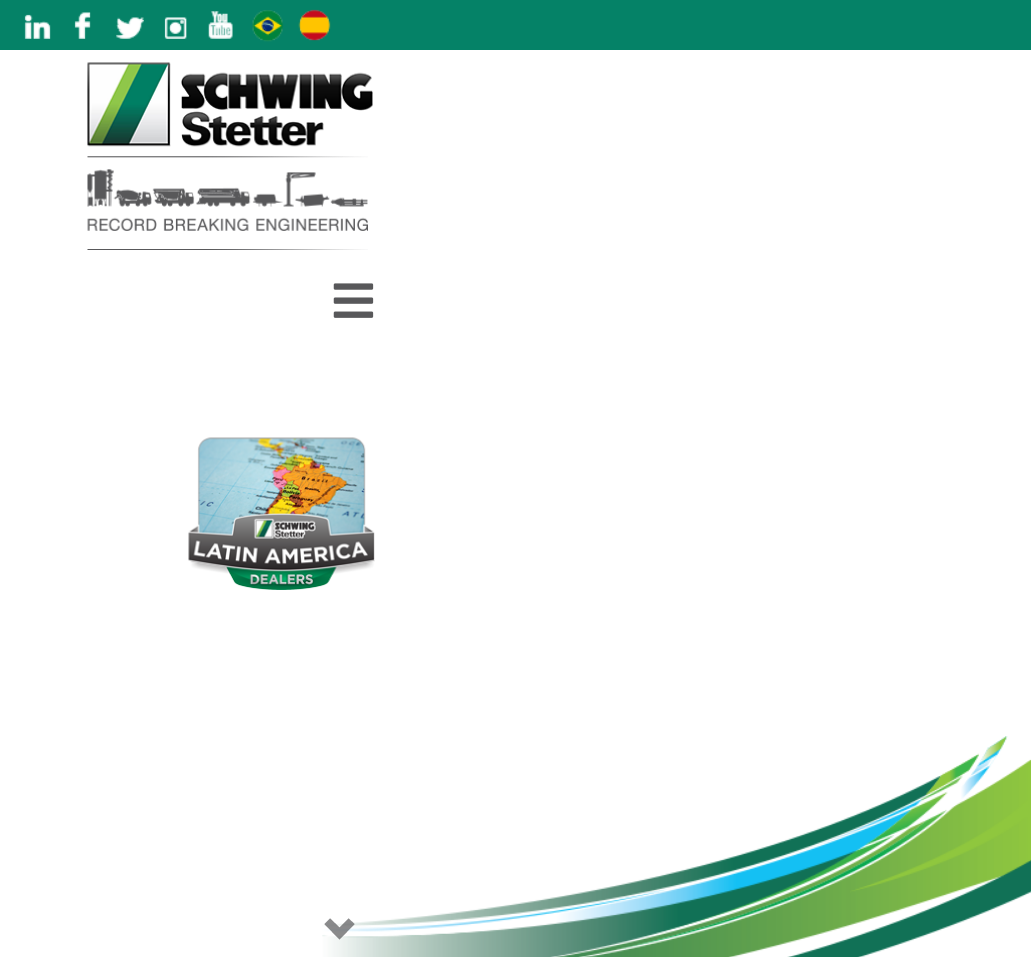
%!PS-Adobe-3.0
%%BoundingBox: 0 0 1031 957
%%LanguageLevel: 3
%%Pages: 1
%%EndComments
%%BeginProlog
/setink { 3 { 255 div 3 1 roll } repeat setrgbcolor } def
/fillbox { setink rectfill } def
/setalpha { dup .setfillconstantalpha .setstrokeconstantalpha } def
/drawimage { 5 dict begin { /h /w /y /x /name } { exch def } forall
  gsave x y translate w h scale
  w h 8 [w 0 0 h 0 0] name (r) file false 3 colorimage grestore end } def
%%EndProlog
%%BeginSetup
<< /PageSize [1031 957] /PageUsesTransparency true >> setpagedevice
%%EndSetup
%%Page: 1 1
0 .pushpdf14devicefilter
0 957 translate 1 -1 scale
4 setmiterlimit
0 0 1031 957 255 255 255 fillbox
0 0 1031 50 5 130 103 fillbox
(assets/img1.rgb) 24 14 27 25 drawimage
(assets/img2.rgb) 74 12 17 27 drawimage
(assets/img3.rgb) 116 17 28 22 drawimage
(assets/img4.rgb) 164 17 23 22 drawimage
(assets/img5.rgb) 208 11 25 28 drawimage
(assets/img6.rgb) 252 10 32 32 drawimage
(assets/img7.rgb) 298 9 33 32 drawimage
(assets/img8.rgb) 322 736 709 221 drawimage
(assets/img9.rgb) 87 62 286 85 drawimage
(assets/img10.rgb) 87 156 281 94 drawimage
(assets/img11.rgb) 333 283 41 35 drawimage
(assets/img12.rgb) 188 437 187 153 drawimage
0.7 setalpha
88 88 90 setink
339.5 939.5 moveto 354.5 924 lineto 348.5 918.5 lineto 339.5 927.5 lineto 330 918.5 lineto 324.5 924 lineto closepath fill
.poppdf14devicefilter showpage
%%EOF
